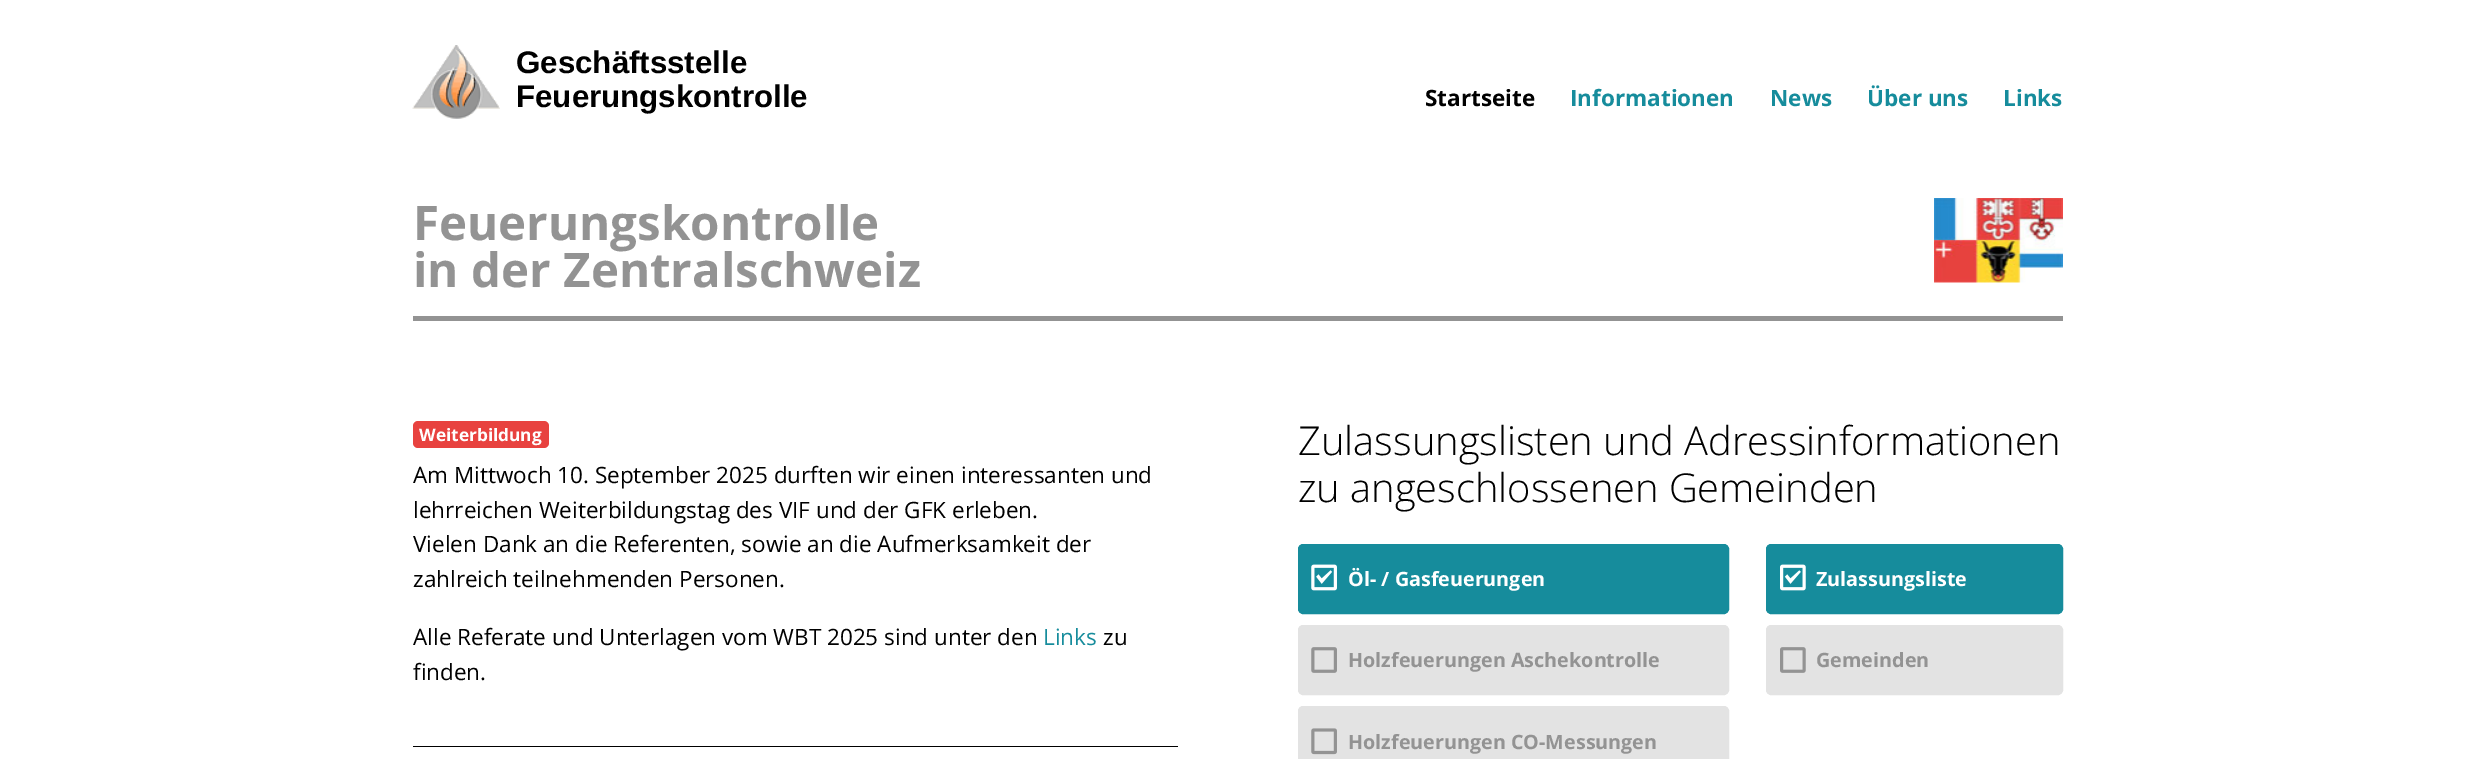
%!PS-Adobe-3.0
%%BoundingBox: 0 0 2475 759
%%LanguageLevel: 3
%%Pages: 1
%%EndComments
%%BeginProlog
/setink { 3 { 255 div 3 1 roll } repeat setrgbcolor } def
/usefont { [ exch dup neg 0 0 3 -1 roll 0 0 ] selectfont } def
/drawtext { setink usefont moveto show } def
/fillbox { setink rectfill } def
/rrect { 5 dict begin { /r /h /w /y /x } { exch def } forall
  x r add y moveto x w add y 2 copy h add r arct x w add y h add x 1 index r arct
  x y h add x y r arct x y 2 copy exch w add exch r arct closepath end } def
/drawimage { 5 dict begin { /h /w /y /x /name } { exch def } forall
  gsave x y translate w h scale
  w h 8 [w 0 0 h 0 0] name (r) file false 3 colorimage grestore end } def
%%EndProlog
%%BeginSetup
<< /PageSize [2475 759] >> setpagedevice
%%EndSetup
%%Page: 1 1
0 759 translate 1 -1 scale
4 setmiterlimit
0 0 2475 759 255 255 255 fillbox
(assets/img1.rgb) 412 45 88 74 drawimage
(Geschäftsstelle) 516 73 /LiberationSans-Bold 31.25 0 0 0 drawtext
(Feuerungskontrolle) 516 107 /LiberationSans-Bold 31.25 0 0 0 drawtext
(Startseite) 1425 106 /OpenSans-Bold 22.5 0 0 0 drawtext
(Informationen) 1570 106 /OpenSans-Bold 22.5 22 140 156 drawtext
(News) 1770 106 /OpenSans-Bold 22.5 22 140 156 drawtext
(Über uns) 1867 106 /OpenSans-Bold 22.5 22 140 156 drawtext
(Links) 2003 106 /OpenSans-Bold 22.5 22 140 156 drawtext
413 316 1650 5 147 147 147 fillbox
(Feuerungskontrolle) 413 240 /OpenSans-Bold 47.5 147 147 147 drawtext
(in der Zentralschweiz) 413 287 /OpenSans-Bold 47.5 147 147 147 drawtext
(assets/img2.rgb) 1934 198 129 85 drawimage
413 746 765 1 0 0 0 fillbox
232 66 63 setink
413 421 136 27 5 rrect fill
(Weiterbildung) 419 441 /OpenSans-Bold 17.25 255 255 255 drawtext
(Am Mittwoch 10. September 2025 durften wir einen interessanten und) 413 483 /OpenSans-Regular 22.5 0 0 0 drawtext
(lehrreichen Weiterbildungstag des VIF und der GFK erleben.) 413 518 /OpenSans-Regular 22.5 0 0 0 drawtext
(Vielen Dank an die Referenten, sowie an die Aufmerksamkeit der) 413 552 /OpenSans-Regular 22.5 0 0 0 drawtext
(zahlreich teilnehmenden Personen.) 413 587 /OpenSans-Regular 22.5 0 0 0 drawtext
(Alle Referate und Unterlagen vom WBT 2025 sind unter den) 413 645 /OpenSans-Regular 22.5 0 0 0 drawtext
(Links) 1043 645 /OpenSans-Regular 22.5 22 140 156 drawtext
(zu) 1103 645 /OpenSans-Regular 22.5 0 0 0 drawtext
(finden.) 413 680 /OpenSans-Regular 22.5 0 0 0 drawtext
(Zulassungslisten und Adressinformationen) 1298 455 /OpenSans-Light 39.8 0 0 0 drawtext
(zu angeschlossenen Gemeinden) 1298 502 /OpenSans-Light 39.8 0 0 0 drawtext
22 140 156 setink
1298.5 544.5 430 69 4.5 rrect gsave fill grestore
stroke
(assets/img3.rgb) 1311 564 26 27 drawimage
(Öl- / Gasfeuerungen) 1348 586 /OpenSans-Bold 19.75 255 255 255 drawtext
227 227 227 setink
1298.5 625.5 430 69 4.5 rrect gsave fill grestore
stroke
(assets/img4.rgb) 1311 647 26 26 drawimage
(Holzfeuerungen Aschekontrolle) 1348 667 /OpenSans-Bold 19.75 147 147 147 drawtext
227 227 227 setink
1298.5 706.5 430 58 4.5 rrect gsave fill grestore
stroke
(assets/img5.rgb) 1311 728 26 27 drawimage
(Holzfeuerungen CO-Messungen) 1348 749 /OpenSans-Bold 19.75 147 147 147 drawtext
22 140 156 setink
1766.5 544.5 296 69 4.5 rrect gsave fill grestore
stroke
(assets/img6.rgb) 1780 564 26 27 drawimage
(Zulassungsliste) 1816 586 /OpenSans-Bold 19.75 255 255 255 drawtext
227 227 227 setink
1766.5 625.5 296 69 4.5 rrect gsave fill grestore
stroke
(assets/img7.rgb) 1780 647 26 26 drawimage
(Gemeinden) 1816 667 /OpenSans-Bold 19.75 147 147 147 drawtext
showpage
%%EOF
